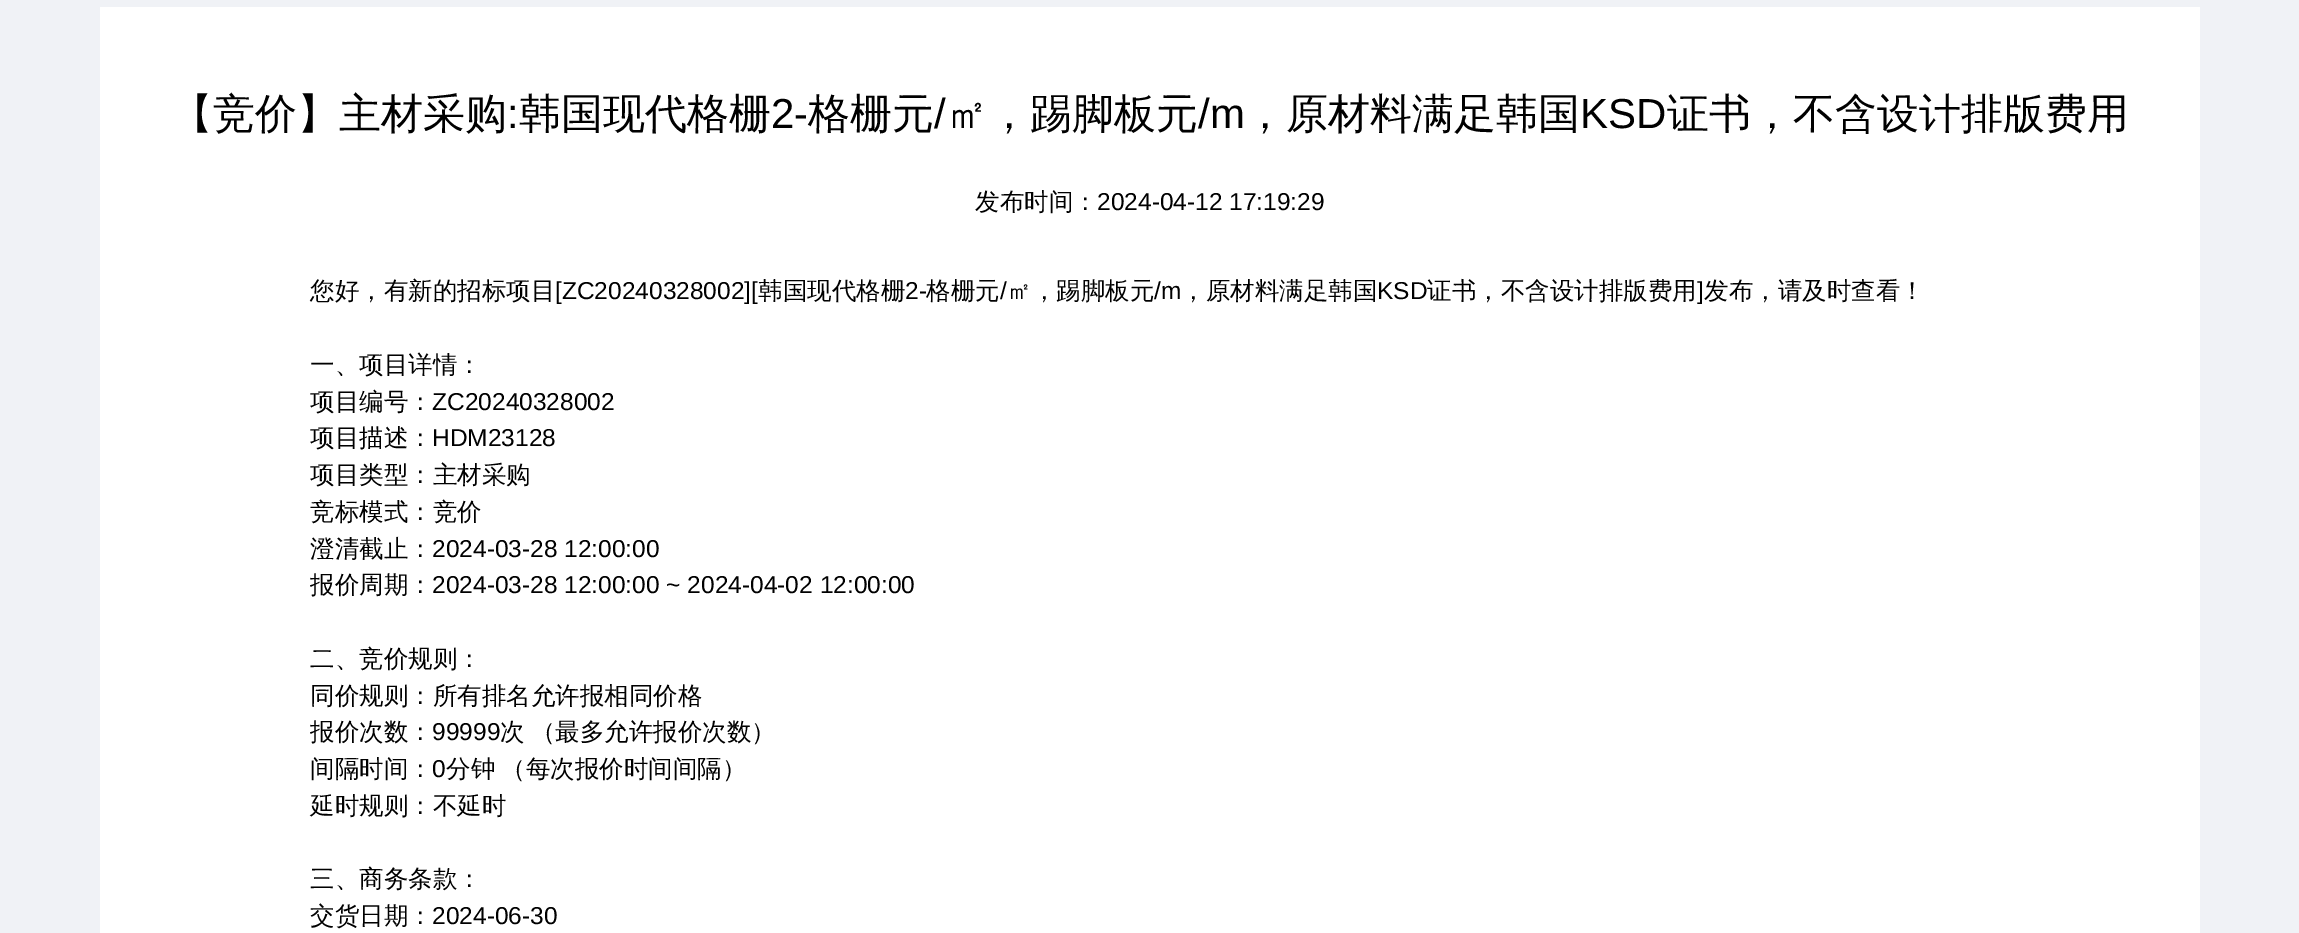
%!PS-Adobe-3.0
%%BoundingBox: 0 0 2299 933
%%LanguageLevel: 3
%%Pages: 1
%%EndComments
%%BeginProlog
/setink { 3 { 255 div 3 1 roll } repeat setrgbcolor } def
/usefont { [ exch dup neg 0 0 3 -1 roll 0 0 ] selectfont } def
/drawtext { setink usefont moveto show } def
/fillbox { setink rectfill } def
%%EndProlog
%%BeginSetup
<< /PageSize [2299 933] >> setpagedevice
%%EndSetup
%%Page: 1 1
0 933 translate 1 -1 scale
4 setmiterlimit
0 0 2299 933 240 242 246 fillbox
100 7 2100 926 255 255 255 fillbox
(【竞价】主材采购) 171 128 /WenQuanYiZenHei-Medium 42 0 0 0 drawtext
(:) 507 128 /LiberationSans-Regular 42 0 0 0 drawtext
(韩国现代格栅) 519 128 /WenQuanYiZenHei-Medium 42 0 0 0 drawtext
(2-) 771 128 /LiberationSans-Regular 42 0 0 0 drawtext
(格栅元) 808 128 /WenQuanYiZenHei-Medium 42 0 0 0 drawtext
(/) 934 128 /LiberationSans-Regular 42 0 0 0 drawtext
(㎡，踢脚板元) 946 128 /WenQuanYiZenHei-Medium 42 0 0 0 drawtext
(/m) 1198 128 /LiberationSans-Regular 42 0 0 0 drawtext
(，原材料满足韩国) 1244 128 /WenQuanYiZenHei-Medium 42 0 0 0 drawtext
(KSD) 1580 128 /LiberationSans-Regular 42 0 0 0 drawtext
(证书，不含设计排版费用) 1667 128 /WenQuanYiZenHei-Medium 42 0 0 0 drawtext
(发布时间：) 975 210 /WenQuanYiZenHei-Medium 24.5 0 0 0 drawtext
(2024-04-12 17:19:29) 1097 210 /LiberationSans-Regular 24.5 0 0 0 drawtext
(您好，有新的招标项目) 310 299 /WenQuanYiZenHei-Medium 24.5 0 0 0 drawtext
([ZC20240328002][) 555 299 /LiberationSans-Regular 24.5 0 0 0 drawtext
(韩国现代格栅) 758 299 /WenQuanYiZenHei-Medium 24.5 0 0 0 drawtext
(2-) 905 299 /LiberationSans-Regular 24.5 0 0 0 drawtext
(格栅元) 926 299 /WenQuanYiZenHei-Medium 24.5 0 0 0 drawtext
(/) 1000 299 /LiberationSans-Regular 24.5 0 0 0 drawtext
(㎡，踢脚板元) 1007 299 /WenQuanYiZenHei-Medium 24.5 0 0 0 drawtext
(/m) 1154 299 /LiberationSans-Regular 24.5 0 0 0 drawtext
(，原材料满足韩国) 1181 299 /WenQuanYiZenHei-Medium 24.5 0 0 0 drawtext
(KSD) 1377 299 /LiberationSans-Regular 24.5 0 0 0 drawtext
(证书，不含设计排版费用) 1427 299 /WenQuanYiZenHei-Medium 24.5 0 0 0 drawtext
(]) 1697 299 /LiberationSans-Regular 24.5 0 0 0 drawtext
(发布，请及时查看！) 1704 299 /WenQuanYiZenHei-Medium 24.5 0 0 0 drawtext
(一、项目详情：) 310 373 /WenQuanYiZenHei-Medium 24.5 0 0 0 drawtext
(项目编号：) 310 410 /WenQuanYiZenHei-Medium 24.5 0 0 0 drawtext
(ZC20240328002) 432 410 /LiberationSans-Regular 24.5 0 0 0 drawtext
(项目描述：) 310 446 /WenQuanYiZenHei-Medium 24.5 0 0 0 drawtext
(HDM23128) 432 446 /LiberationSans-Regular 24.5 0 0 0 drawtext
(项目类型：主材采购) 310 483 /WenQuanYiZenHei-Medium 24.5 0 0 0 drawtext
(竞标模式：竞价) 310 520 /WenQuanYiZenHei-Medium 24.5 0 0 0 drawtext
(澄清截止：) 310 557 /WenQuanYiZenHei-Medium 24.5 0 0 0 drawtext
(2024-03-28 12:00:00) 432 557 /LiberationSans-Regular 24.5 0 0 0 drawtext
(报价周期：) 310 593 /WenQuanYiZenHei-Medium 24.5 0 0 0 drawtext
(2024-03-28 12:00:00 ~ 2024-04-02 12:00:00) 432 593 /LiberationSans-Regular 24.5 0 0 0 drawtext
(二、竞价规则：) 310 667 /WenQuanYiZenHei-Medium 24.5 0 0 0 drawtext
(同价规则：所有排名允许报相同价格) 310 704 /WenQuanYiZenHei-Medium 24.5 0 0 0 drawtext
(报价次数：) 310 740 /WenQuanYiZenHei-Medium 24.5 0 0 0 drawtext
(99999) 432 740 /LiberationSans-Regular 24.5 0 0 0 drawtext
/WenQuanYiZenHei-Medium 24.5 usefont
500 740 moveto -1 0 32 (次 （最多允许报价次数）) widthshow
(间隔时间：) 310 777 /WenQuanYiZenHei-Medium 24.5 0 0 0 drawtext
(0) 432 777 /LiberationSans-Regular 24.5 0 0 0 drawtext
/WenQuanYiZenHei-Medium 24.5 usefont
446 777 moveto -1 0 32 (分钟 （每次报价时间间隔）) widthshow
(延时规则：不延时) 310 814 /WenQuanYiZenHei-Medium 24.5 0 0 0 drawtext
(三、商务条款：) 310 887 /WenQuanYiZenHei-Medium 24.5 0 0 0 drawtext
(交货日期：) 310 924 /WenQuanYiZenHei-Medium 24.5 0 0 0 drawtext
(2024-06-30) 432 924 /LiberationSans-Regular 24.5 0 0 0 drawtext
showpage
%%EOF
